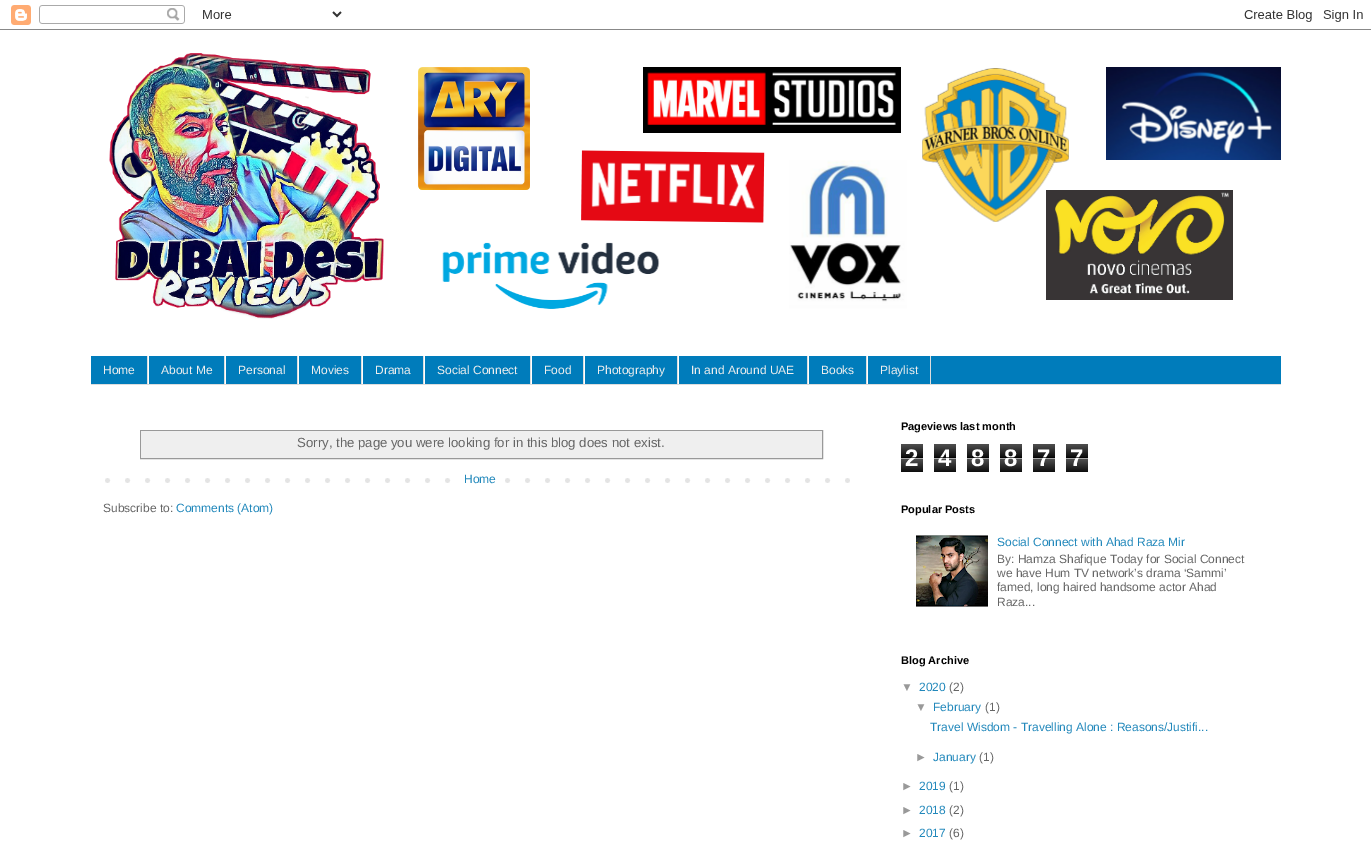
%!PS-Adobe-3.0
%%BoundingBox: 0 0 1371 841
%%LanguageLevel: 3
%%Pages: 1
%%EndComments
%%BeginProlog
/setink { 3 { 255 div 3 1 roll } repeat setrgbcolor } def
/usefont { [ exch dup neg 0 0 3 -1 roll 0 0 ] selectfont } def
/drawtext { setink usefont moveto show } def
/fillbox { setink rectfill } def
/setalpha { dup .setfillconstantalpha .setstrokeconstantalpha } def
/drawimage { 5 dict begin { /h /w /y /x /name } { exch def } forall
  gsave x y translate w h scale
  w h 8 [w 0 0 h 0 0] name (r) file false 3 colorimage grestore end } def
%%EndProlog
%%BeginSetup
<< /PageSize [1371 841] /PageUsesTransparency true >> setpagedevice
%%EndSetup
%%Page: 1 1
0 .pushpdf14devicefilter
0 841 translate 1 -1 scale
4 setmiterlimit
0 0 1371 841 255 255 255 fillbox
(assets/img1.rgb) 0 5 1371 25 drawimage
(assets/img2.rgb) 109 53 1172 266 drawimage
91 356 1190 28 0 124 187 fillbox
91 384 1190 1 221 221 221 fillbox
147 356 1 28 221 221 221 fillbox
(Home) 103 374 /LiberationSans-Regular 12 238 238 238 drawtext
224 356 1 28 221 221 221 fillbox
148 356 1 28 255 255 255 fillbox
(About Me) 161 374 /LiberationSans-Regular 12 238 238 238 drawtext
297 356 1 28 221 221 221 fillbox
225 356 1 28 255 255 255 fillbox
(Personal) 238 374 /LiberationSans-Regular 12 238 238 238 drawtext
361 356 1 28 221 221 221 fillbox
298 356 1 28 255 255 255 fillbox
(Movies) 311 374 /LiberationSans-Regular 12 238 238 238 drawtext
423 356 1 28 221 221 221 fillbox
362 356 1 28 255 255 255 fillbox
(Drama) 375 374 /LiberationSans-Regular 12 238 238 238 drawtext
530 356 1 28 221 221 221 fillbox
424 356 1 28 255 255 255 fillbox
(Social Connect) 437 374 /LiberationSans-Regular 12 238 238 238 drawtext
583 356 1 28 221 221 221 fillbox
531 356 1 28 255 255 255 fillbox
(Food) 544 374 /LiberationSans-Regular 12 238 238 238 drawtext
677 356 1 28 221 221 221 fillbox
584 356 1 28 255 255 255 fillbox
(Photography) 597 374 /LiberationSans-Regular 12 238 238 238 drawtext
807 356 1 28 221 221 221 fillbox
678 356 1 28 255 255 255 fillbox
(In and Around UAE) 691 374 /LiberationSans-Regular 12 238 238 238 drawtext
866 356 1 28 221 221 221 fillbox
808 356 1 28 255 255 255 fillbox
(Books) 821 374 /LiberationSans-Regular 12 238 238 238 drawtext
930 356 1 28 221 221 221 fillbox
867 356 1 28 255 255 255 fillbox
(Playlist) 880 374 /LiberationSans-Regular 12 238 238 238 drawtext
153 153 153 setink
140.5 430.5 682 28 rectstroke
141 431 681 27 239 239 239 fillbox
(Sorry, the page you were looking for in this blog does not exist.) 297 447 /LiberationSans-Regular 13.2 102 102 102 drawtext
(assets/img3.rgb) 105 478 745 5 drawimage
465 478 26 5 255 255 255 fillbox
(Home) 464 483 /LiberationSans-Regular 12 34 136 187 drawtext
(Subscribe to:) 103 512 /LiberationSans-Regular 12 102 102 102 drawtext
(Comments \(Atom\)) 176 512 /LiberationSans-Regular 12 34 136 187 drawtext
(Pageviews last month) 901 430 /LiberationSans-Bold 11 0 0 0 drawtext
(assets/img4.rgb) 901 444 22 28 drawimage
(2) 905 466 /LiberationSans-Bold 24 255 255 255 drawtext
0.65 setalpha
901 457 22 1 0 0 0 fillbox
901 458 22 1 255 255 255 fillbox
1 setalpha
(assets/img4.rgb) 934 444 22 28 drawimage
(4) 938 466 /LiberationSans-Bold 24 255 255 255 drawtext
0.65 setalpha
934 457 22 1 0 0 0 fillbox
934 458 22 1 255 255 255 fillbox
1 setalpha
(assets/img4.rgb) 967 444 22 28 drawimage
(8) 971 466 /LiberationSans-Bold 24 255 255 255 drawtext
0.65 setalpha
967 457 22 1 0 0 0 fillbox
967 458 22 1 255 255 255 fillbox
1 setalpha
(assets/img4.rgb) 1000 444 22 28 drawimage
(8) 1004 466 /LiberationSans-Bold 24 255 255 255 drawtext
0.65 setalpha
1000 457 22 1 0 0 0 fillbox
1000 458 22 1 255 255 255 fillbox
1 setalpha
(assets/img4.rgb) 1033 444 22 28 drawimage
(7) 1037 466 /LiberationSans-Bold 24 255 255 255 drawtext
0.65 setalpha
1033 457 22 1 0 0 0 fillbox
1033 458 22 1 255 255 255 fillbox
1 setalpha
(assets/img4.rgb) 1066 444 22 28 drawimage
(7) 1070 466 /LiberationSans-Bold 24 255 255 255 drawtext
0.65 setalpha
1066 457 22 1 0 0 0 fillbox
1066 458 22 1 255 255 255 fillbox
1 setalpha
(Popular Posts) 901 513 /LiberationSans-Bold 11 0 0 0 drawtext
(assets/img5.rgb) 916 535 72 72 drawimage
(Social Connect with Ahad Raza Mir) 997 546 /LiberationSans-Regular 12 34 136 187 drawtext
(By: Hamza Shafique Today for Social Connect) 997 563 /LiberationSans-Regular 12 102 102 102 drawtext
(we have Hum TV network’s drama ‘Sammi’) 997 577 /LiberationSans-Regular 12 102 102 102 drawtext
(famed, long haired handsome actor Ahad) 997 591 /LiberationSans-Regular 12 102 102 102 drawtext
(Raza...) 997 606 /LiberationSans-Regular 12 102 102 102 drawtext
(Blog Archive) 901 664 /LiberationSans-Bold 11 0 0 0 drawtext
(▼) 901 691 /LiberationSans-Regular 12 153 153 153 drawtext
(2020) 919 691 /LiberationSans-Regular 12 34 136 187 drawtext
(\(2\)) 949 691 /LiberationSans-Regular 12 102 102 102 drawtext
(▼) 915 711 /LiberationSans-Regular 12 153 153 153 drawtext
(February) 933 711 /LiberationSans-Regular 12 34 136 187 drawtext
(\(1\)) 985 711 /LiberationSans-Regular 12 102 102 102 drawtext
(Travel Wisdom - Travelling Alone : Reasons/Justifi...) 930 731 /LiberationSans-Regular 12 34 136 187 drawtext
(►) 915 761 /LiberationSans-Regular 12 153 153 153 drawtext
(January) 933 761 /LiberationSans-Regular 12 34 136 187 drawtext
(\(1\)) 979 761 /LiberationSans-Regular 12 102 102 102 drawtext
(►) 901 790 /LiberationSans-Regular 12 153 153 153 drawtext
(2019) 919 790 /LiberationSans-Regular 12 34 136 187 drawtext
(\(1\)) 949 790 /LiberationSans-Regular 12 102 102 102 drawtext
(►) 901 814 /LiberationSans-Regular 12 153 153 153 drawtext
(2018) 919 814 /LiberationSans-Regular 12 34 136 187 drawtext
(\(2\)) 949 814 /LiberationSans-Regular 12 102 102 102 drawtext
(►) 901 837 /LiberationSans-Regular 12 153 153 153 drawtext
(2017) 919 837 /LiberationSans-Regular 12 34 136 187 drawtext
(\(6\)) 949 837 /LiberationSans-Regular 12 102 102 102 drawtext
.poppdf14devicefilter showpage
%%EOF
